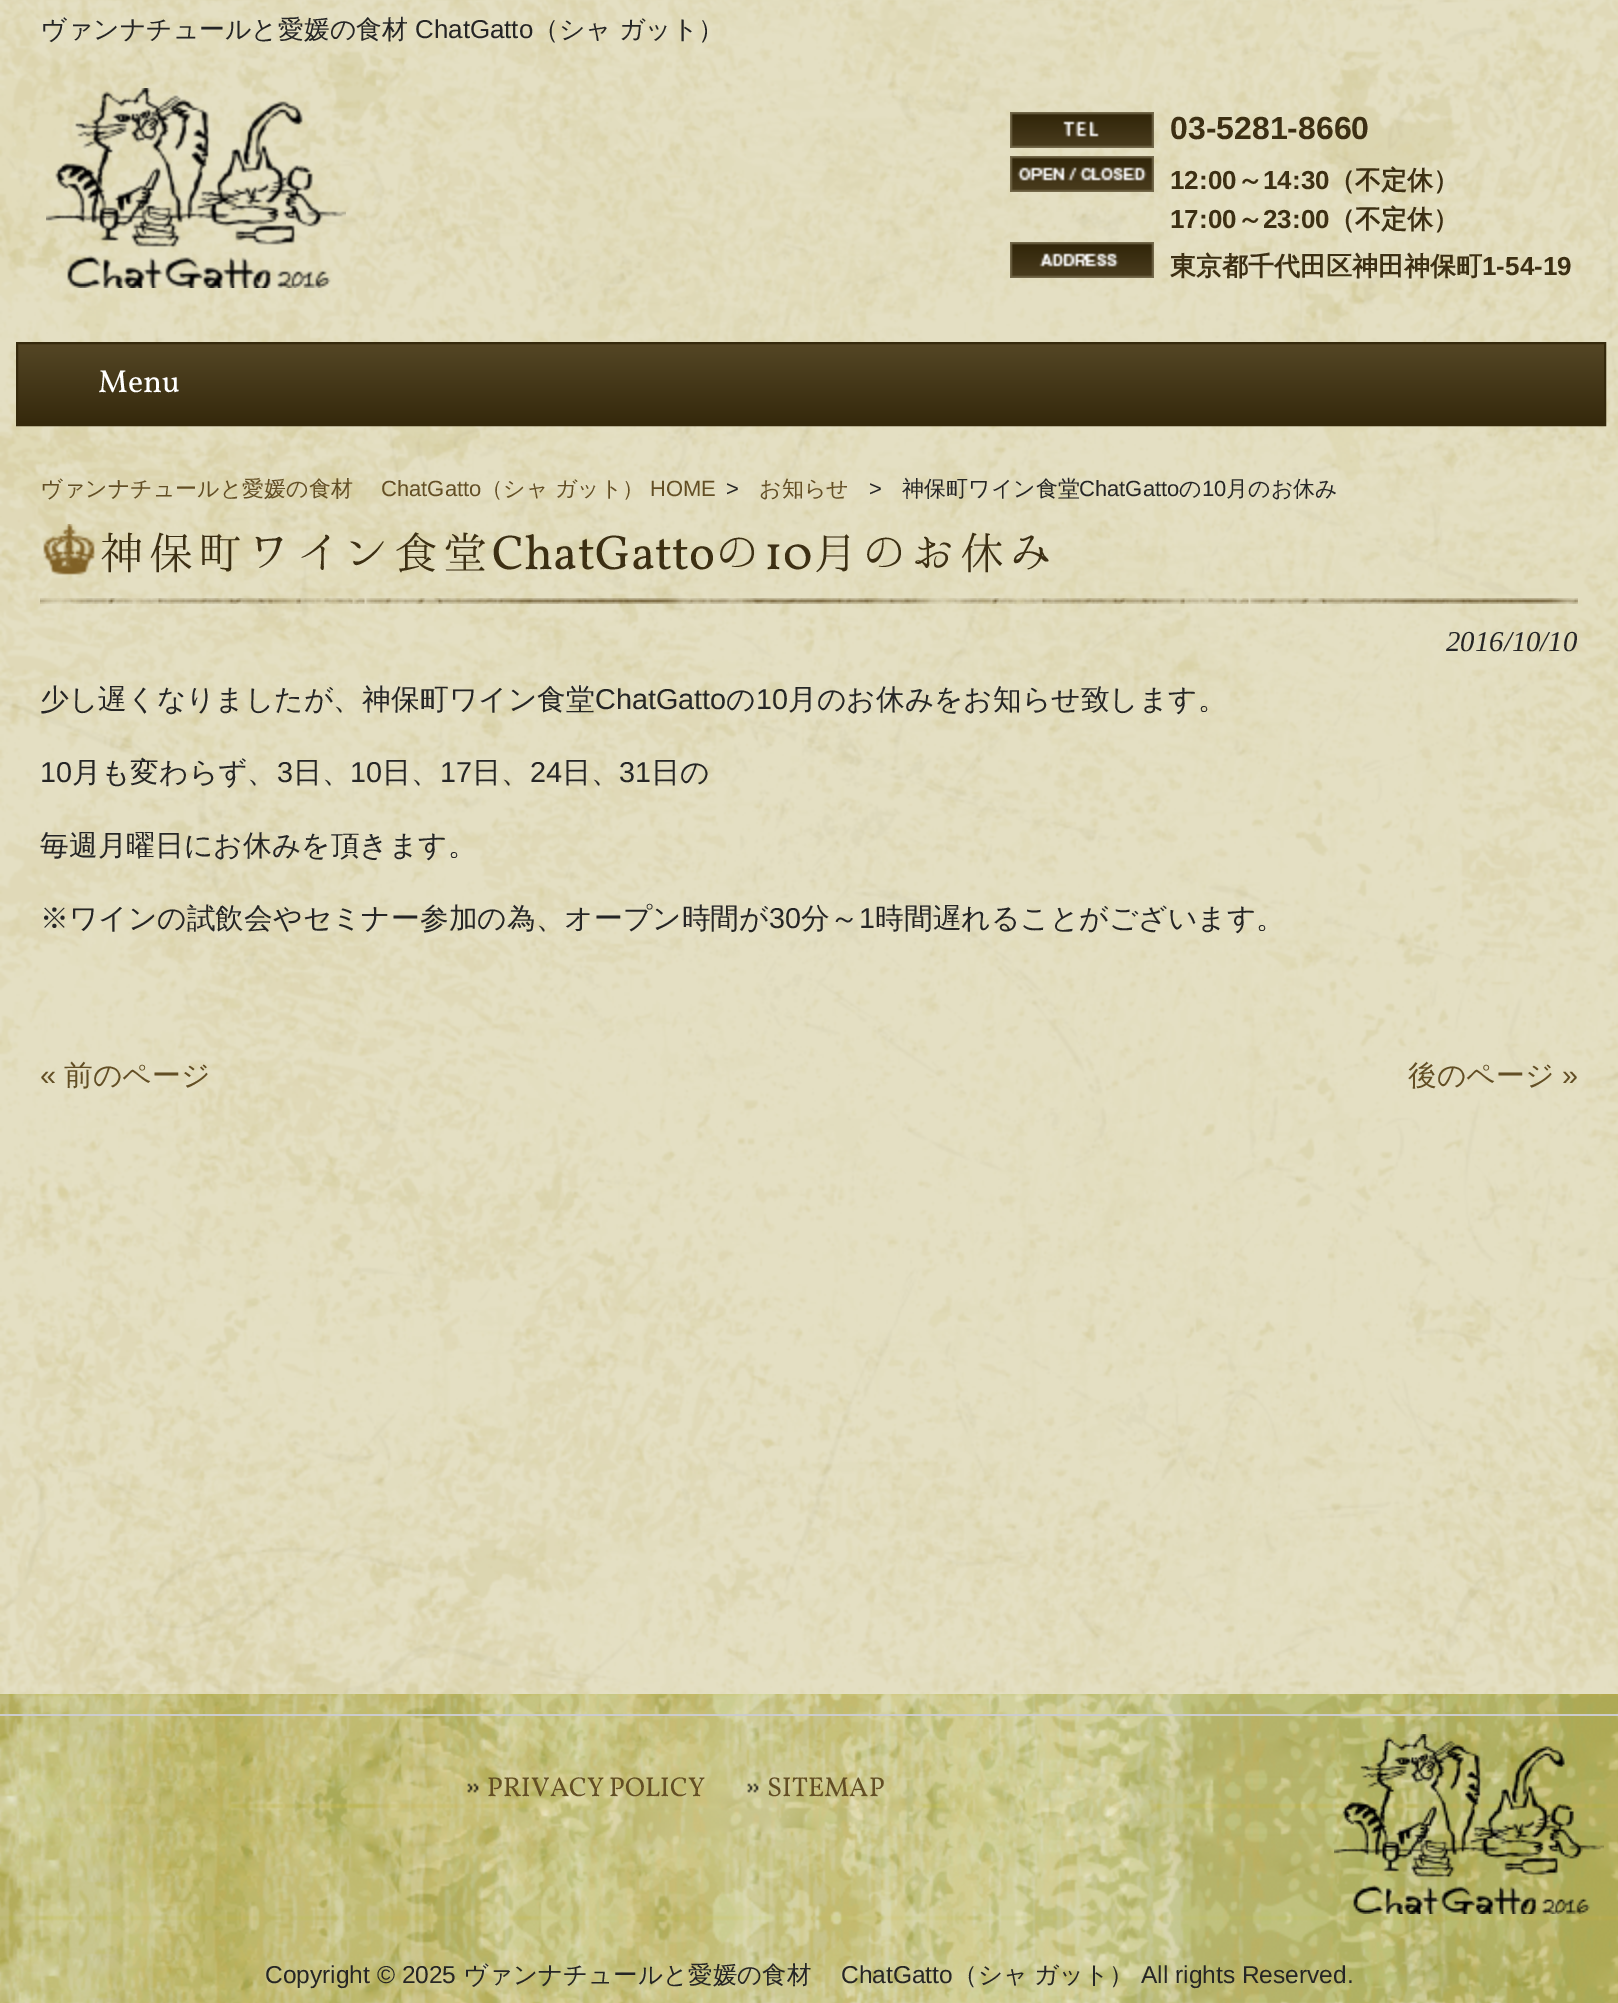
%!PS-Adobe-3.0
%%BoundingBox: 0 0 1618 2003
%%LanguageLevel: 3
%%Pages: 1
%%EndComments
%%BeginProlog
/setink { 3 { 255 div 3 1 roll } repeat setrgbcolor } def
/usefont { [ exch dup neg 0 0 3 -1 roll 0 0 ] selectfont } def
/drawtext { setink usefont moveto show } def
/fillbox { setink rectfill } def
/drawimage { 5 dict begin { /h /w /y /x /name } { exch def } forall
  gsave x y translate w h scale
  w h 8 [w 0 0 h 0 0] name (r) file false 3 colorimage grestore end } def
%%EndProlog
%%BeginSetup
<< /PageSize [1618 2003] >> setpagedevice
%%EndSetup
%%Page: 1 1
0 2003 translate 1 -1 scale
4 setmiterlimit
0 0 1618 2003 255 255 255 fillbox
(assets/img1.rgb) 0 0 1618 1694 drawimage
(ヴァンナチュールと愛媛の食材) 40 38 /WenQuanYiZenHei-Medium 25.9 37 37 37 drawtext
(ChatGatto) 415 38 /LiberationSans-Regular 25.9 37 37 37 drawtext
/WenQuanYiZenHei-Medium 25.9 usefont
533 38 moveto -1 0 32 (（シャ ガット）) widthshow
(assets/img2.rgb) 46 88 300 200 drawimage
(assets/img3.rgb) 1010 112 144 36 drawimage
(03-5281-8660) 1170 139 /LiberationSans-Bold 32 60 47 19 drawtext
(assets/img4.rgb) 1010 156 144 36 drawimage
(12:00) 1170 189 /LiberationSans-Bold 26 60 47 19 drawtext
(～) 1237 189 /WenQuanYiZenHei-Bold 26 60 47 19 drawtext
(14:30) 1263 189 /LiberationSans-Bold 26 60 47 19 drawtext
(（不定休）) 1329 189 /WenQuanYiZenHei-Bold 26 60 47 19 drawtext
(17:00) 1170 228 /LiberationSans-Bold 26 60 47 19 drawtext
(～) 1237 228 /WenQuanYiZenHei-Bold 26 60 47 19 drawtext
(23:00) 1263 228 /LiberationSans-Bold 26 60 47 19 drawtext
(（不定休）) 1329 228 /WenQuanYiZenHei-Bold 26 60 47 19 drawtext
(assets/img5.rgb) 1010 242 144 36 drawimage
(東京都千代田区神田神保町) 1170 275 /WenQuanYiZenHei-Bold 26 60 47 19 drawtext
(1-54-19) 1482 275 /LiberationSans-Bold 26 60 47 19 drawtext
gsave 18 344 moveto 1604 344 lineto 1604 424 lineto 18 424 lineto closepath clip newpath
<< /ShadingType 2 /ColorSpace /DeviceRGB /Coords [811 344 811 424] /Extend [true true] /Function << /FunctionType 2 /Domain [0 1] /C0 [0.329 0.275 0.145] /C1 [0.208 0.161 0.047] /N 1 >> >> shfill grestore
53 41 12 setink
2 setlinewidth
17 343 1588 82 rectstroke
(Menu) 98 392 /Vollkorn-Regular 32 255 255 255 drawtext
(ヴァンナチュールと愛媛の食材) 40 496 /WenQuanYiZenHei-Medium 22 98 78 36 drawtext
(ChatGatto) 381 496 /LiberationSans-Regular 22 98 78 36 drawtext
(（シャ ガット）) 481 496 /WenQuanYiZenHei-Medium 22 98 78 36 drawtext
(HOME) 650 496 /LiberationSans-Regular 22 98 78 36 drawtext
(>) 726 496 /LiberationSans-Regular 22 37 37 37 drawtext
(お知らせ) 759 496 /WenQuanYiZenHei-Medium 22 98 78 36 drawtext
(>) 869 496 /LiberationSans-Regular 22 37 37 37 drawtext
(神保町ワイン食堂) 902 496 /WenQuanYiZenHei-Medium 22 37 37 37 drawtext
(ChatGatto) 1079 496 /LiberationSans-Regular 22 37 37 37 drawtext
(の) 1179 496 /WenQuanYiZenHei-Medium 22 37 37 37 drawtext
(10) 1202 496 /LiberationSans-Regular 22 37 37 37 drawtext
(月のお休み) 1226 496 /WenQuanYiZenHei-Medium 22 37 37 37 drawtext
(assets/img6.rgb) 40 598 1538 6 drawimage
(assets/img7.rgb) 43 524 52 51 drawimage
(神保町ワイン食堂) 100 569 /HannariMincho-Regular 49 60 47 19 drawtext
(ChatGatto) 492 569 /Vollkorn-Regular 49 60 47 19 drawtext
(の) 715 569 /HannariMincho-Regular 49 60 47 19 drawtext
(10) 764 569 /Vollkorn-Regular 49 60 47 19 drawtext
(月のお休み) 813 569 /HannariMincho-Regular 49 60 47 19 drawtext
(2016/10/10) 1446 651 /LiberationSerif-Italic 28.8 37 37 37 drawtext
(少し遅くなりましたが、神保町ワイン食堂) 40 709 /WenQuanYiZenHei-Medium 28.8 37 37 37 drawtext
(ChatGatto) 595 709 /LiberationSans-Regular 28.8 37 37 37 drawtext
(の) 726 709 /WenQuanYiZenHei-Medium 28.8 37 37 37 drawtext
(10) 756 709 /LiberationSans-Regular 28.8 37 37 37 drawtext
(月のお休みをお知らせ致します。) 788 709 /WenQuanYiZenHei-Medium 28.8 37 37 37 drawtext
(10) 40 782 /LiberationSans-Regular 28.8 37 37 37 drawtext
(月も変わらず、) 72 782 /WenQuanYiZenHei-Medium 28.8 37 37 37 drawtext
(3) 277 782 /LiberationSans-Regular 28.8 37 37 37 drawtext
(日、) 293 782 /WenQuanYiZenHei-Medium 28.8 37 37 37 drawtext
(10) 350 782 /LiberationSans-Regular 28.8 37 37 37 drawtext
(日、) 382 782 /WenQuanYiZenHei-Medium 28.8 37 37 37 drawtext
(17) 440 782 /LiberationSans-Regular 28.8 37 37 37 drawtext
(日、) 472 782 /WenQuanYiZenHei-Medium 28.8 37 37 37 drawtext
(24) 530 782 /LiberationSans-Regular 28.8 37 37 37 drawtext
(日、) 562 782 /WenQuanYiZenHei-Medium 28.8 37 37 37 drawtext
(31) 619 782 /LiberationSans-Regular 28.8 37 37 37 drawtext
(日の) 651 782 /WenQuanYiZenHei-Medium 28.8 37 37 37 drawtext
(毎週月曜日にお休みを頂きます。) 40 855 /WenQuanYiZenHei-Medium 28.8 37 37 37 drawtext
(※ワインの試飲会やセミナー参加の為、オープン時間が) 40 928 /WenQuanYiZenHei-Medium 28.8 37 37 37 drawtext
(30) 769 928 /LiberationSans-Regular 28.8 37 37 37 drawtext
(分～) 801 928 /WenQuanYiZenHei-Medium 28.8 37 37 37 drawtext
(1) 859 928 /LiberationSans-Regular 28.8 37 37 37 drawtext
(時間遅れることがございます。) 875 928 /WenQuanYiZenHei-Medium 28.8 37 37 37 drawtext
(«) 40 1085 /LiberationSans-Regular 28.8 98 78 36 drawtext
(前のページ) 64 1085 /WenQuanYiZenHei-Medium 28.8 98 78 36 drawtext
(後のページ) 1408 1085 /WenQuanYiZenHei-Medium 28.8 98 78 36 drawtext
(») 1562 1085 /LiberationSans-Regular 28.8 98 78 36 drawtext
(assets/img8.rgb) 0 1694 1618 309 drawimage
0 1714 1618 2 204 204 204 fillbox
(assets/img9.rgb) 467 1783 12 10 drawimage
(PRIVACY POLICY) 487 1796 /Vollkorn-Regular 27.25 98 78 36 drawtext
(assets/img10.rgb) 747 1783 12 10 drawimage
(SITEMAP) 767 1796 /Vollkorn-Regular 27.25 98 78 36 drawtext
(assets/img11.rgb) 1334 1734 270 180 drawimage
(Copyright © 2025) 265 1983 /LiberationSans-Regular 24.5 37 37 37 drawtext
(ヴァンナチュールと愛媛の食材) 463 1983 /WenQuanYiZenHei-Medium 24.5 37 37 37 drawtext
(ChatGatto) 841 1983 /LiberationSans-Regular 24.5 37 37 37 drawtext
/WenQuanYiZenHei-Medium 24.5 usefont
953 1983 moveto -1 0 32 (（シャ ガット）) widthshow
(All rights Reserved.) 1141 1983 /LiberationSans-Regular 24.5 37 37 37 drawtext
showpage
%%EOF
